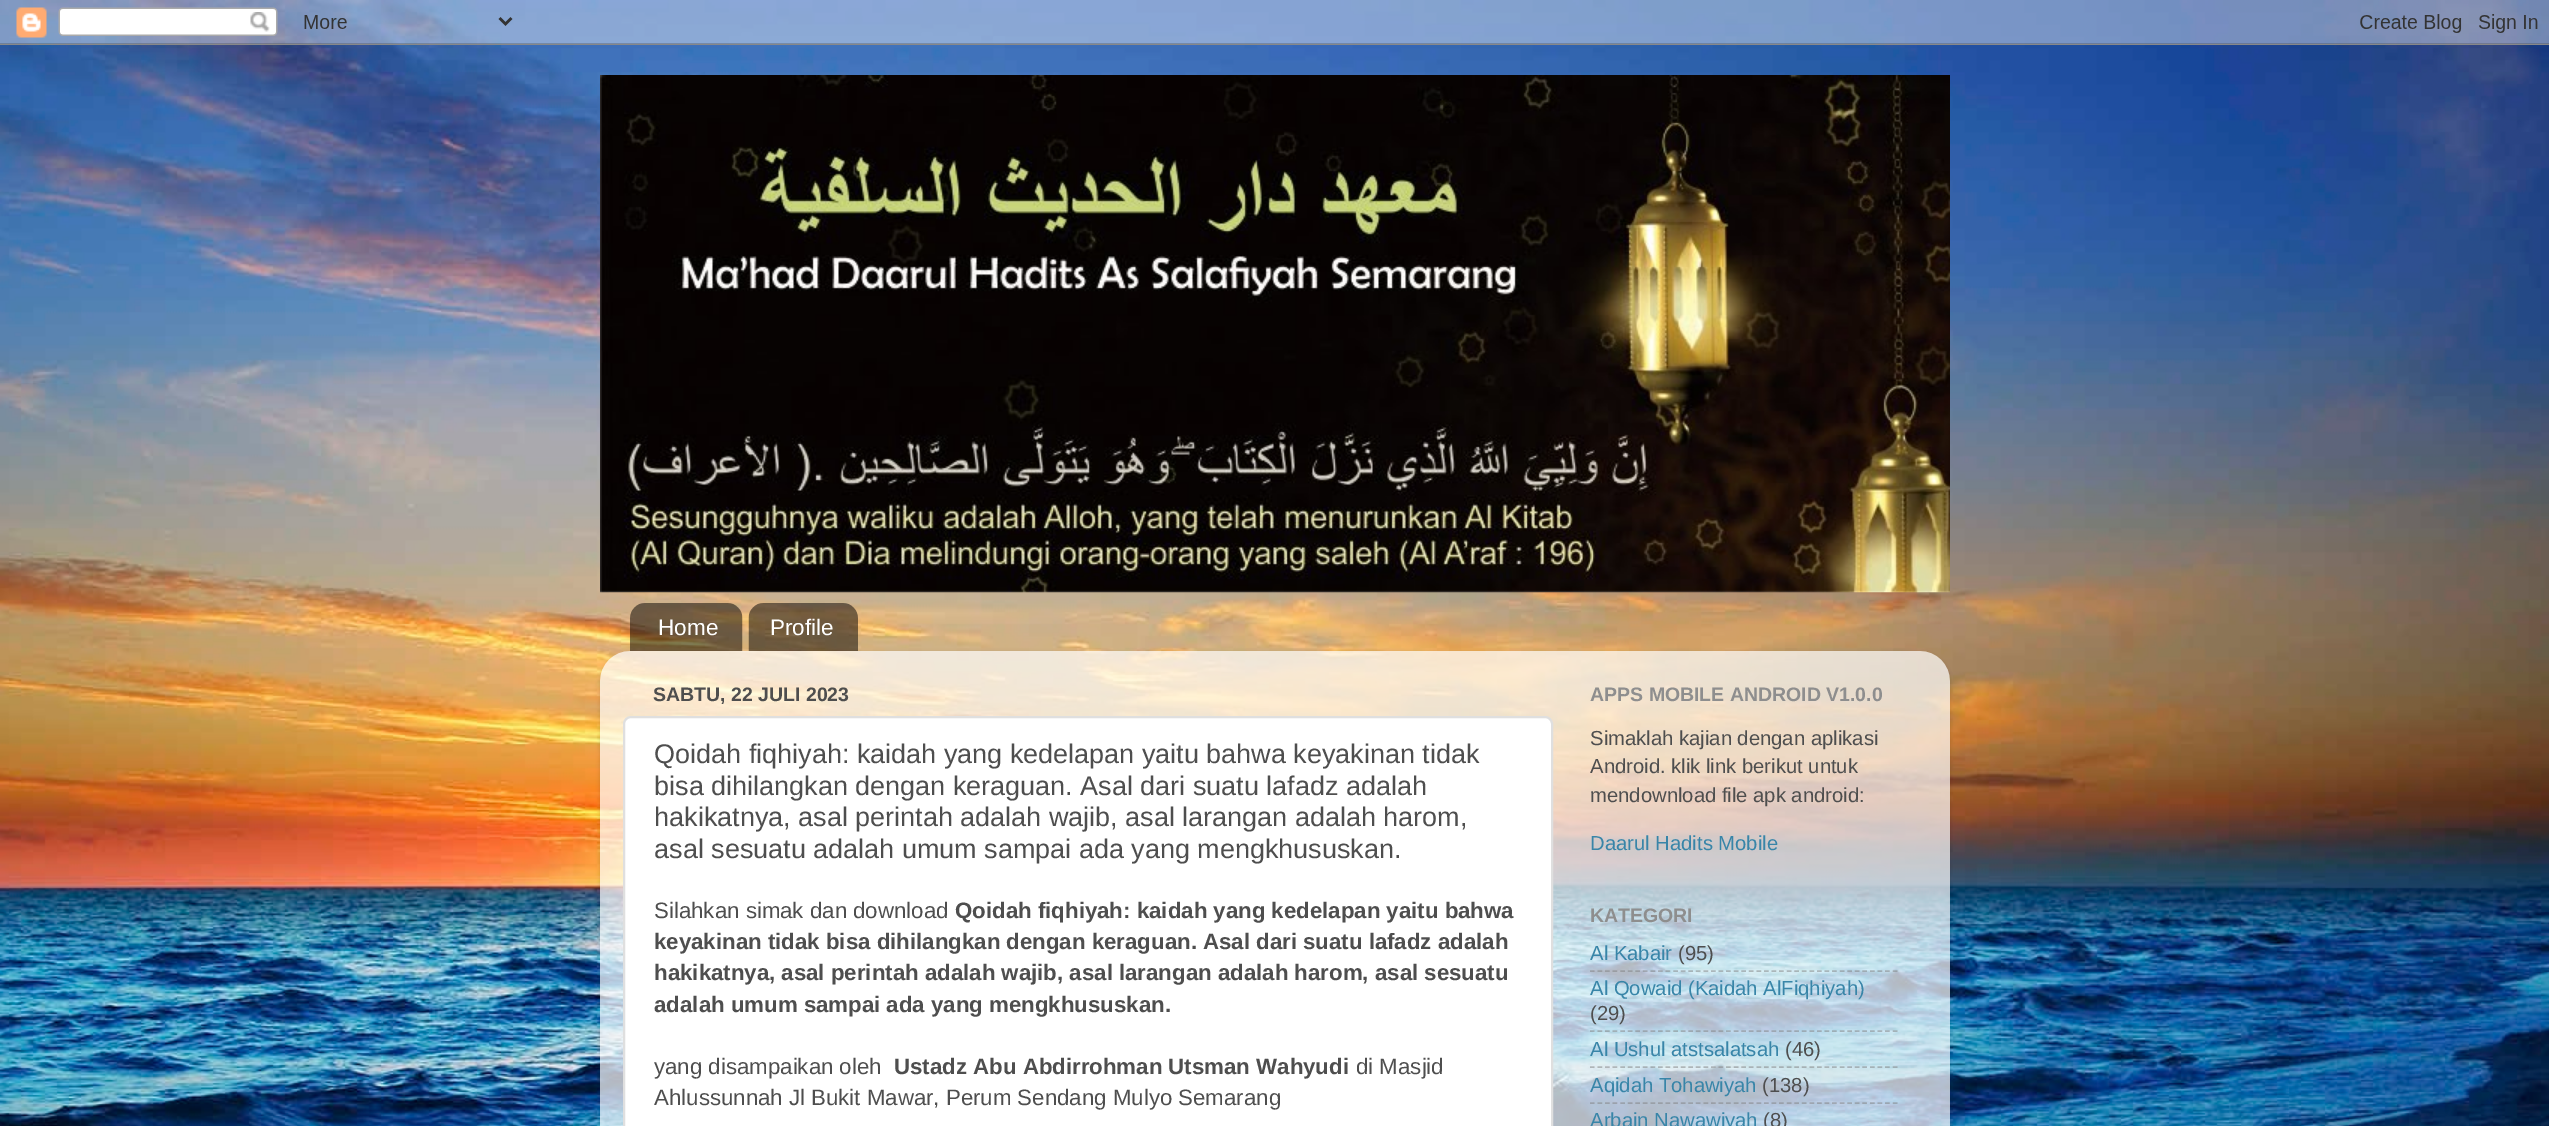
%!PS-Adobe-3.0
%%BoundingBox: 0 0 2549 1126
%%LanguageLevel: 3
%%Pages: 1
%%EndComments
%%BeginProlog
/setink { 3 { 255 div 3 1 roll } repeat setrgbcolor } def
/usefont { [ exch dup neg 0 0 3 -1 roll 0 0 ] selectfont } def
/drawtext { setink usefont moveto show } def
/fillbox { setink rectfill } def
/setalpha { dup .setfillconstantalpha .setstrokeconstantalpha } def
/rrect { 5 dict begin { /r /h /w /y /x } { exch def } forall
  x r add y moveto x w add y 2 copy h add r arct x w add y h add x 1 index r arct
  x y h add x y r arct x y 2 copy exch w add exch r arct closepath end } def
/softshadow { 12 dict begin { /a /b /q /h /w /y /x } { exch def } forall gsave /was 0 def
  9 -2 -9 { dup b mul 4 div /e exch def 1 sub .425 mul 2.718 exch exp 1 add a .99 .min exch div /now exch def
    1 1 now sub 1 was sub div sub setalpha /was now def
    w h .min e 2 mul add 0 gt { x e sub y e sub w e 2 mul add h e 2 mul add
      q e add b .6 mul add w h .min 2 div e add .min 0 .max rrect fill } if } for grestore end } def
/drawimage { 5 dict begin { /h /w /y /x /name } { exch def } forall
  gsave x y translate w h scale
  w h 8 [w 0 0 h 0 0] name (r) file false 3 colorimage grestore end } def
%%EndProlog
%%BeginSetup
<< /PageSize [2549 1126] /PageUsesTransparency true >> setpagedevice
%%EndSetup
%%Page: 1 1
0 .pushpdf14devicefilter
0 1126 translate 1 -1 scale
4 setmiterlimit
0 0 2549 1126 255 255 255 fillbox
(assets/img1.rgb) 0 0 2549 1126 drawimage
(assets/img2.rgb) 0 0 2549 45 drawimage
(assets/img3.rgb) 600 75 1350 518 drawimage
(assets/img4.rgb) 630 603 113 48 drawimage
(Home) 658 635 /LiberationSans-Regular 22.5 255 255 255 drawtext
(assets/img5.rgb) 748 603 110 48 drawimage
(Profile) 770 635 /LiberationSans-Regular 22.5 255 255 255 drawtext
gsave
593 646 moveto 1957 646 lineto 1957 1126 lineto 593 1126 lineto closepath 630 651 moveto 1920 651 lineto 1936.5 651 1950 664.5 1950 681 curveto 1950 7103 lineto 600 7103 lineto 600 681 lineto 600 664.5 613.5 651 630 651 curveto closepath eoclip newpath
0 0 0 setink
600 653 1350 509 30 2 0.15 softshadow
grestore
(assets/img6.rgb) 600 651 1350 475 drawimage
(SABTU, 22 JULI 2023) 653 701 /LiberationSans-Bold 19.5 78 78 78 drawtext
255 255 255 setink
624 717 928 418 7 rrect gsave fill grestore
223 223 223 setink
2 setlinewidth
stroke
(Qoidah fiqhiyah: kaidah yang kedelapan yaitu bahwa keyakinan tidak) 654 763 /LiberationSans-Regular 27 78 78 78 drawtext
(bisa dihilangkan dengan keraguan. Asal dari suatu lafadz adalah) 654 795 /LiberationSans-Regular 27 78 78 78 drawtext
(hakikatnya, asal perintah adalah wajib, asal larangan adalah harom,) 654 826 /LiberationSans-Regular 27 78 78 78 drawtext
(asal sesuatu adalah umum sampai ada yang mengkhususkan.) 654 858 /LiberationSans-Regular 27 78 78 78 drawtext
(Silahkan simak dan download) 654 918 /LiberationSans-Regular 22.25 78 78 78 drawtext
(Qoidah fiqhiyah: kaidah yang kedelapan yaitu bahwa) 955 918 /LiberationSans-Bold 22.25 78 78 78 drawtext
(keyakinan tidak bisa dihilangkan dengan keraguan. Asal dari suatu lafadz adalah) 654 949 /LiberationSans-Bold 22.25 78 78 78 drawtext
(hakikatnya, asal perintah adalah wajib, asal larangan adalah harom, asal sesuatu) 654 980 /LiberationSans-Bold 22.25 78 78 78 drawtext
(adalah umum sampai ada yang mengkhususkan.) 654 1012 /LiberationSans-Bold 22.25 78 78 78 drawtext
(yang disampaikan oleh) 654 1074 /LiberationSans-Regular 22.25 78 78 78 drawtext
(Ustadz Abu Abdirrohman Utsman Wahyudi) 894 1074 /LiberationSans-Bold 22.25 78 78 78 drawtext
(di Masjid) 1356 1074 /LiberationSans-Regular 22.25 78 78 78 drawtext
(Ahlussunnah Jl Bukit Mawar, Perum Sendang Mulyo Semarang) 654 1105 /LiberationSans-Regular 22.25 78 78 78 drawtext
(APPS MOBILE ANDROID V1.0.0) 1590 701 /LiberationSans-Bold 19.5 142 142 142 drawtext
(Simaklah kajian dengan aplikasi) 1590 745 /LiberationSans-Regular 20.25 78 78 78 drawtext
(Android. klik link berikut untuk) 1590 773 /LiberationSans-Regular 20.25 78 78 78 drawtext
(mendownload file apk android:) 1590 802 /LiberationSans-Regular 20.25 78 78 78 drawtext
(Daarul Hadits Mobile) 1590 850 /LiberationSans-Regular 20.25 56 133 168 drawtext
(KATEGORI) 1590 922 /LiberationSans-Bold 19.5 142 142 142 drawtext
(Al Kabair) 1590 960 /LiberationSans-Regular 20.25 56 133 168 drawtext
(\(95\)) 1678 960 /LiberationSans-Regular 20.25 78 78 78 drawtext
0.5 setalpha
128 128 128 setink
1.5 setlinewidth
[4.5 3.07] 0 setdash
1590 971 moveto 1897.5 971 lineto stroke
1 setalpha
(Al Qowaid \(Kaidah AlFiqhiyah\)) 1590 995 /LiberationSans-Regular 20.25 56 133 168 drawtext
(\(29\)) 1590 1020 /LiberationSans-Regular 20.25 78 78 78 drawtext
0.5 setalpha
128 128 128 setink
1590 1031 moveto 1897.5 1031 lineto stroke
1 setalpha
(Al Ushul atstsalatsah) 1590 1056 /LiberationSans-Regular 20.25 56 133 168 drawtext
(\(46\)) 1785 1056 /LiberationSans-Regular 20.25 78 78 78 drawtext
0.5 setalpha
128 128 128 setink
1590 1067 moveto 1897.5 1067 lineto stroke
1 setalpha
(Aqidah Tohawiyah) 1590 1092 /LiberationSans-Regular 20.25 56 133 168 drawtext
(\(138\)) 1762 1092 /LiberationSans-Regular 20.25 78 78 78 drawtext
0.5 setalpha
128 128 128 setink
1590 1103 moveto 1897.5 1103 lineto stroke
1 setalpha
(Arbain Nawawiyah) 1590 1127 /LiberationSans-Regular 20.25 56 133 168 drawtext
(\(8\)) 1763 1127 /LiberationSans-Regular 20.25 78 78 78 drawtext
.poppdf14devicefilter showpage
%%EOF
